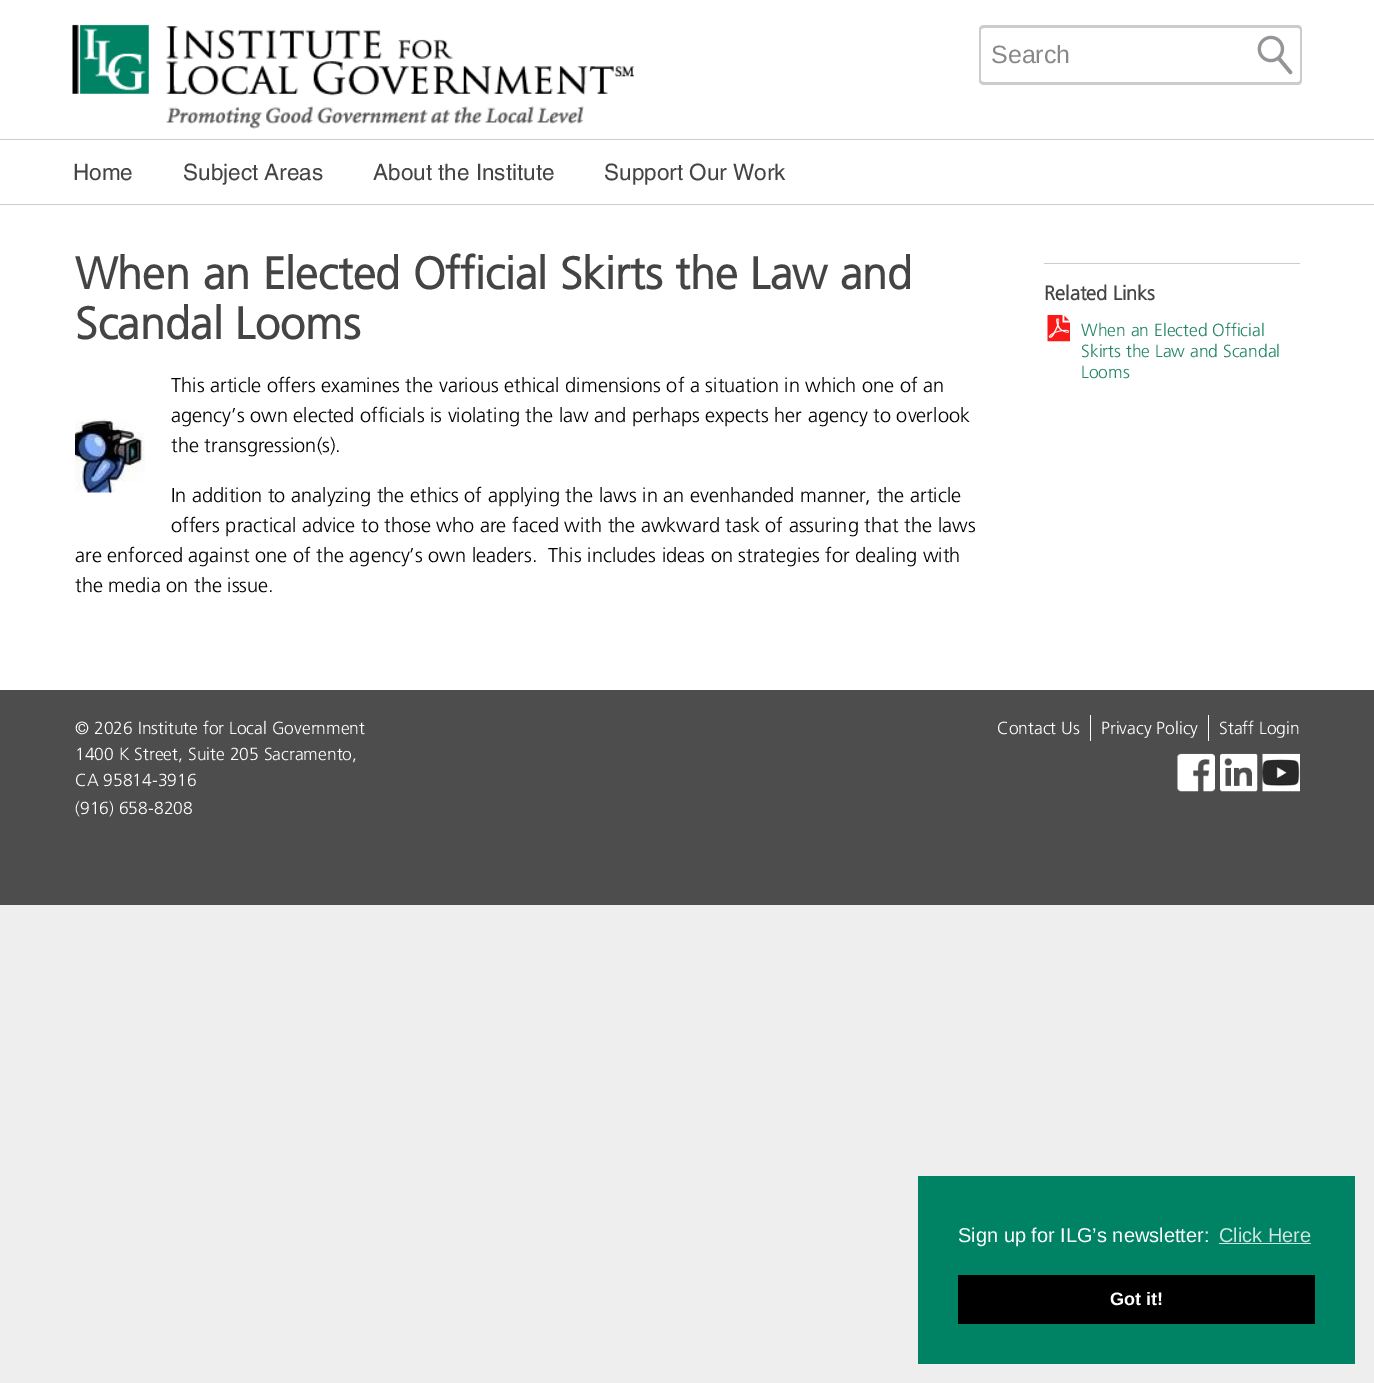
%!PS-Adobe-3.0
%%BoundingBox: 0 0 1374 1383
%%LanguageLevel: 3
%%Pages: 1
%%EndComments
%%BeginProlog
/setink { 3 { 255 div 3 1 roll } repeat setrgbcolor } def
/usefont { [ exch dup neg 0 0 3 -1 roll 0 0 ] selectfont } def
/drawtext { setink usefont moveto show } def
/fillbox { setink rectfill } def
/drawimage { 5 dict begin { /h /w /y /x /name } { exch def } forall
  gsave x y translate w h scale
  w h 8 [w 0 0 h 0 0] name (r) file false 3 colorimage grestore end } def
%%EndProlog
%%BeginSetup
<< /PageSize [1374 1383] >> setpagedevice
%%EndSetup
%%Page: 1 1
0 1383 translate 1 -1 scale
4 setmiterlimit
0 0 1374 1383 238 238 238 fillbox
0 0 1374 690 255 255 255 fillbox
(assets/img1.rgb) 72 24 562 105 drawimage
204 204 204 setink
984 25 moveto 1251 25 lineto 1251 85 lineto 984 85 lineto 981 85 979 83 979 80 curveto 979 30 lineto 979 27 981 25 984 25 curveto closepath 984 28 moveto 1251 28 lineto 1251 82 lineto 984 82 lineto 982 82 981 81 981 80 curveto 981 30 lineto 981 29 982 28 984 28 curveto closepath eofill
(Search) 991 63 /LiberationSans-Regular 25 136 136 136 drawtext
(assets/img2.rgb) 1257 35 36 40 drawimage
204 204 204 setink
1250 25 moveto 1298 25 lineto 1300 25 1302 27 1302 30 curveto 1302 80 lineto 1302 83 1300 85 1298 85 curveto 1250 85 lineto closepath 1250 28 moveto 1298 28 lineto 1299 28 1300 29 1300 30 curveto 1300 80 lineto 1300 81 1299 82 1298 82 curveto 1250 82 lineto closepath eofill
(Home) 73 180 /Helvetica-Regular 22.5 68 68 68 drawtext
(Subject Areas) 183 180 /Helvetica-Regular 22.5 68 68 68 drawtext
(About the Institute) 373 180 /Helvetica-Regular 22.5 68 68 68 drawtext
(Support Our Work) 604 180 /Helvetica-Regular 22.5 68 68 68 drawtext
0 139 1374 1 204 204 204 fillbox
0 204 1374 1 204 204 204 fillbox
(When an Elected Official Skirts the Law and) 75 289 /Frutiger-Bold 45 68 68 68 drawtext
(Scandal Looms) 75 339 /Frutiger-Bold 45 68 68 68 drawtext
(This article offers examines the various ethical dimensions of a situation in which one of an) 171 392 /Frutiger-Light 20 0 0 0 drawtext
(agency’s own elected officials is violating the law and perhaps expects her agency to overlook) 171 422 /Frutiger-Light 20 0 0 0 drawtext
(the transgression\(s\).) 171 452 /Frutiger-Light 20 0 0 0 drawtext
(In addition to analyzing the ethics of applying the laws in an evenhanded manner, the article) 171 502 /Frutiger-Light 20 0 0 0 drawtext
(offers practical advice to those who are faced with the awkward task of assuring that the laws) 171 532 /Frutiger-Light 20 0 0 0 drawtext
(are enforced against one of the agency’s own leaders.  This includes ideas on strategies for dealing with) 75 562 /Frutiger-Light 20 0 0 0 drawtext
(the media on the issue.) 75 592 /Frutiger-Light 20 0 0 0 drawtext
(assets/img3.rgb) 75 419 70 74 drawimage
1044 263 256 1 204 204 204 fillbox
(Related Links) 1044 300 /Frutiger-Bold 20 68 68 68 drawtext
(assets/img4.rgb) 1047 315 23 27 drawimage
(When an Elected Official) 1081 336 /Frutiger-Light 17.5 35 135 99 drawtext
(Skirts the Law and Scandal) 1081 357 /Frutiger-Light 17.5 35 135 99 drawtext
(Looms) 1081 378 /Frutiger-Light 17.5 35 135 99 drawtext
0 690 1374 215 77 77 77 fillbox
(© 2026 Institute for Local Government) 75 734 /Frutiger-Light 17.5 255 255 255 drawtext
(1400 K Street, Suite 205 Sacramento,) 75 760 /Frutiger-Light 17.5 255 255 255 drawtext
(CA 95814-3916) 75 786 /Frutiger-Light 17.5 255 255 255 drawtext
(\(916\) 658-8208) 75 814 /Frutiger-Light 17.5 255 255 255 drawtext
(Contact Us) 997 734 /Frutiger-Light 17.5 255 255 255 drawtext
1090 715 1 26 255 255 255 fillbox
(Privacy Policy) 1101 734 /Frutiger-Light 17.5 255 255 255 drawtext
1208 715 1 26 255 255 255 fillbox
(Staff Login) 1219 734 /Frutiger-Light 17.5 255 255 255 drawtext
(assets/img5.rgb) 1177 753 38 39 drawimage
(assets/img6.rgb) 1220 753 38 39 drawimage
(assets/img7.rgb) 1262 753 38 39 drawimage
918 1176 437 188 0 130 101 fillbox
(Sign up for ILG’s newsletter:) 958 1242 /LiberationSans-Regular 20 255 255 255 drawtext
(Click Here) 1219 1242 /LiberationSans-Regular 20 204 230 224 drawtext
1219 1243 92 1 204 230 224 fillbox
958 1275 357 49 0 0 0 fillbox
(Got it!) 1110 1305 /LiberationSans-Bold 18 255 255 255 drawtext
showpage
%%EOF
